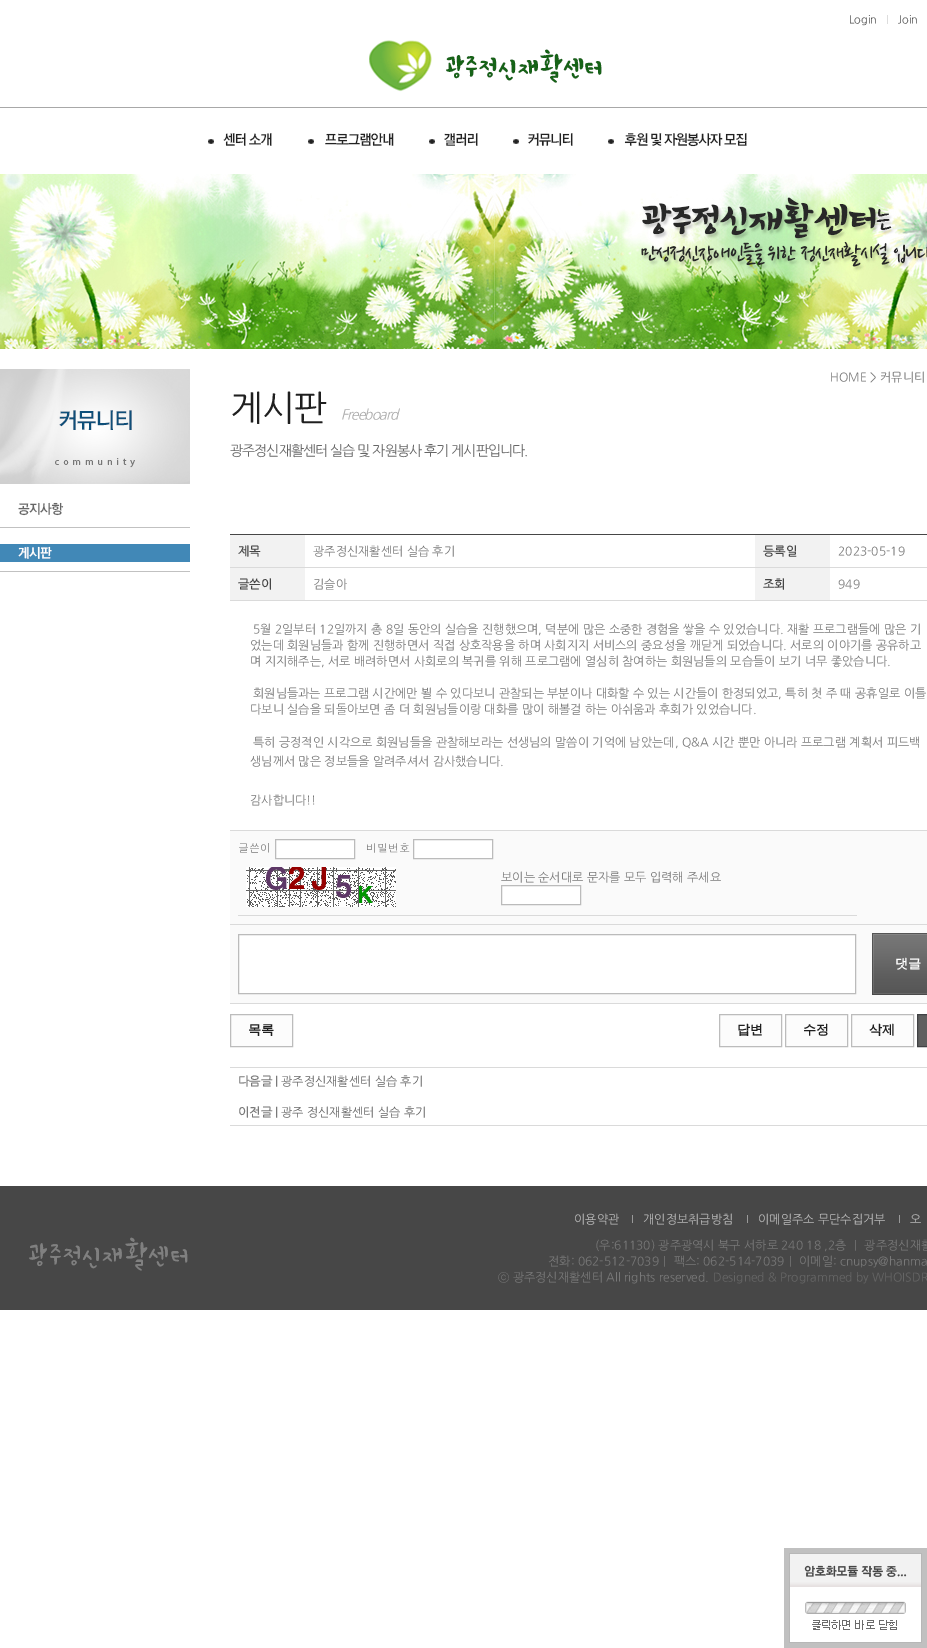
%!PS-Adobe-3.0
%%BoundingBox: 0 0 927 1648
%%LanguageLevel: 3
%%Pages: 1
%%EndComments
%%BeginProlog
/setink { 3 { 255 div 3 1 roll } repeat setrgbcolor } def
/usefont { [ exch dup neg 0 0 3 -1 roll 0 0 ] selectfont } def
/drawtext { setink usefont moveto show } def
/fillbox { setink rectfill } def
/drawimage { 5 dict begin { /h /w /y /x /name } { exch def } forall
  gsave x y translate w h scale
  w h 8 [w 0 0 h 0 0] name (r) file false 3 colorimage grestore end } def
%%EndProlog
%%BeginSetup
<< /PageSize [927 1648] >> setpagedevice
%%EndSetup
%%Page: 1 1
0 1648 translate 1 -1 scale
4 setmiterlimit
0 0 927 1648 255 255 255 fillbox
(Login) 849 23 /NanumGothic-Regular 11 85 85 85 drawtext
887 15 1 9 221 221 221 fillbox
(Join) 898 23 /NanumGothic-Regular 11 85 85 85 drawtext
0 107 927 1 168 168 168 fillbox
(assets/img1.rgb) 369 40 233 52 drawimage
(assets/img2.rgb) 208 139 6 5 drawimage
(assets/img3.rgb) 223 133 49 13 drawimage
(assets/img4.rgb) 308 139 6 5 drawimage
(assets/img5.rgb) 325 133 69 13 drawimage
(assets/img2.rgb) 429 139 6 5 drawimage
(assets/img6.rgb) 444 133 34 13 drawimage
(assets/img4.rgb) 513 139 6 5 drawimage
(assets/img7.rgb) 528 133 45 13 drawimage
(assets/img2.rgb) 608 139 6 5 drawimage
(assets/img8.rgb) 624 133 123 14 drawimage
(assets/img9.rgb) 0 174 927 175 drawimage
(assets/img10.rgb) 0 369 190 115 drawimage
(assets/img11.rgb) 0 502 190 26 drawimage
(assets/img12.rgb) 0 544 190 28 drawimage
(HOME > 커뮤니티) 830 381 /NanumGothic-Regular 12 121 121 121 drawtext
/NanumGothic-Regular 35 usefont
31 31 31 setink
230 419 moveto -1 0 (게시판) ashow
/NanumGothic-Italic 14 usefont
172 172 172 setink
341 419 moveto -1 0 (Freeboard) ashow
/NanumGothic-Regular 14 usefont
102 102 102 setink
230 455 moveto -1 0 (광주정신재활센터 실습 및 자원봉사 후기 게시판입니다.) ashow
230 534 697 1 70 70 70 fillbox
230 535 75 32 242 242 242 fillbox
(제목) 238 555 /NanumGothic-Bold 12 70 70 70 drawtext
(광주정신재활센터 실습 후기) 313 555 /NanumGothic-Regular 12 121 121 121 drawtext
755 535 75 32 242 242 242 fillbox
(등록일) 763 555 /NanumGothic-Bold 12 70 70 70 drawtext
230 567 697 1 218 218 218 fillbox
(2023-05-19) 838 555 /NanumGothic-Regular 12 121 121 121 drawtext
230 568 75 32 242 242 242 fillbox
(글쓴이) 238 588 /NanumGothic-Bold 12 70 70 70 drawtext
(김슬아) 313 588 /NanumGothic-Regular 12 121 121 121 drawtext
755 568 75 32 242 242 242 fillbox
(조회) 763 588 /NanumGothic-Bold 12 70 70 70 drawtext
230 600 697 1 218 218 218 fillbox
(949) 838 588 /NanumGothic-Regular 12 121 121 121 drawtext
230 830 697 1 218 218 218 fillbox
(5월 2일부터 12일까지 총 8일 동안의 실습을 진행했으며, 덕분에 많은 소중한 경험을 쌓을 수 있었습니다. 재활 프로그램들에 많은 기) 253 633 /NanumGothic-Regular 12 121 121 121 drawtext
(었는데 회원님들과 함께 진행하면서 직접 상호작용을 하며 사회지지 서비스의 중요성을 깨닫게 되었습니다. 서로의 이야기를 공유하고) 250 649 /NanumGothic-Regular 12 121 121 121 drawtext
(며 지지해주는, 서로 배려하면서 사회로의 복귀를 위해 프로그램에 열심히 참여하는 회원님들의 모습들이 보기 너무 좋았습니다.) 250 665 /NanumGothic-Regular 12 121 121 121 drawtext
(회원님들과는 프로그램 시간에만 뵐 수 있다보니 관찰되는 부분이나 대화할 수 있는 시간들이 한정되었고, 특히 첫 주 때 공휴일로 이틀) 253 697 /NanumGothic-Regular 12 121 121 121 drawtext
(다보니 실습을 되돌아보면 좀 더 회원님들이랑 대화를 많이 해볼걸 하는 아쉬움과 후회가 있었습니다.) 250 713 /NanumGothic-Regular 12 121 121 121 drawtext
(특히 긍정적인 시각으로 회원님들을 관찰해보라는 선생님의 말씀이 기억에 남았는데, Q&A 시간 뿐만 아니라 프로그램 계획서 피드백) 253 746 /NanumGothic-Regular 12 121 121 121 drawtext
(생님께서 많은 정보들을 알려주셔서 감사했습니다.) 250 765 /NanumGothic-Regular 12 121 121 121 drawtext
(감사합니다!!) 250 804 /NanumGothic-Regular 12 121 121 121 drawtext
230 831 697 93 250 250 250 fillbox
(글쓴이) 238 852 /Dotum-Regular 11 121 121 121 drawtext
255 255 255 setink
275.5 839.5 moveto 354.5 839.5 lineto 354.5 858.5 lineto 275.5 858.5 lineto closepath gsave fill grestore
187 187 187 setink
stroke
(비밀번호) 366 852 /Dotum-Regular 11 121 121 121 drawtext
255 255 255 setink
413.5 839.5 moveto 492.5 839.5 lineto 492.5 858.5 lineto 413.5 858.5 lineto closepath gsave fill grestore
187 187 187 setink
stroke
(assets/img13.rgb) 246 867 150 40 drawimage
238 915 619 1 218 218 218 fillbox
(보이는 순서대로 문자를 모두 입력해 주세요) 501 881 /NanumGothic-Regular 12 121 121 121 drawtext
255 255 255 setink
501.5 885.5 moveto 580.5 885.5 lineto 580.5 904.5 lineto 501.5 904.5 lineto closepath gsave fill grestore
187 187 187 setink
stroke
230 924 697 1 218 218 218 fillbox
230 925 697 78 250 250 250 fillbox
255 255 255 setink
238.5 934.5 moveto 855.5 934.5 lineto 855.5 993.5 lineto 238.5 993.5 lineto closepath gsave fill grestore
187 187 187 setink
stroke
230 1003 697 1 218 218 218 fillbox
(assets/img14.rgb) 872 933 55 62 drawimage
(댓글) 895 968 /WenQuanYiZenHei-Bold 13 255 255 255 drawtext
252 252 252 setink
230.5 1014.5 moveto 292.5 1014.5 lineto 292.5 1046.5 lineto 230.5 1046.5 lineto closepath gsave fill grestore
188 188 188 setink
stroke
(목록) 248 1034 /WenQuanYiZenHei-Bold 13 31 31 31 drawtext
252 252 252 setink
719.5 1014.5 moveto 781.5 1014.5 lineto 781.5 1046.5 lineto 719.5 1046.5 lineto closepath gsave fill grestore
188 188 188 setink
stroke
(답변) 737 1034 /WenQuanYiZenHei-Bold 13 31 31 31 drawtext
252 252 252 setink
785.5 1014.5 moveto 847.5 1014.5 lineto 847.5 1046.5 lineto 785.5 1046.5 lineto closepath gsave fill grestore
188 188 188 setink
stroke
(수정) 803 1034 /WenQuanYiZenHei-Bold 13 31 31 31 drawtext
252 252 252 setink
851.5 1014.5 moveto 913.5 1014.5 lineto 913.5 1046.5 lineto 851.5 1046.5 lineto closepath gsave fill grestore
188 188 188 setink
stroke
(삭제) 869 1034 /WenQuanYiZenHei-Bold 13 31 31 31 drawtext
95 95 95 setink
917.5 1014.5 moveto 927.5 1014.5 lineto 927.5 1046.5 lineto 917.5 1046.5 lineto closepath gsave fill grestore
64 65 68 setink
stroke
230 1067 697 1 218 218 218 fillbox
(다음글 |) 238 1085 /NanumGothic-Bold 12 121 121 121 drawtext
(광주정신재활센터 실습 후기) 281 1085 /NanumGothic-Regular 12 102 102 102 drawtext
230 1125 697 1 218 218 218 fillbox
(이전글 |) 238 1116 /NanumGothic-Bold 12 121 121 121 drawtext
(광주 정신재활센터 실습 후기) 281 1116 /NanumGothic-Regular 12 102 102 102 drawtext
0 1186 927 124 71 71 71 fillbox
(assets/img15.rgb) 29 1237 159 34 drawimage
(이용약관) 574 1223 /NanumGothic-Regular 12 187 187 187 drawtext
632 1215 1 8 153 153 153 fillbox
(개인정보취급방침) 643 1223 /NanumGothic-Regular 12 187 187 187 drawtext
747 1215 1 8 153 153 153 fillbox
(이메일주소 무단수집거부) 758 1223 /NanumGothic-Regular 12 187 187 187 drawtext
899 1215 1 8 153 153 153 fillbox
(오) 910 1223 /NanumGothic-Regular 12 187 187 187 drawtext
(\(우:61130\) 광주광역시 북구 서하로 240 18 ,2층 ｜ 광주정신재활) 595 1249 /NanumGothic-Regular 12 121 121 121 drawtext
(전화: 062-512-7039｜ 팩스: 062-514-7039｜ 이메일: cnupsy@hanma) 548 1265 /NanumGothic-Regular 12 121 121 121 drawtext
(ⓒ 광주정신재활센터 All rights reserved.) 498 1281 /NanumGothic-Regular 12 121 121 121 drawtext
(Designed & Programmed by WHOISDR) 713 1281 /NanumGothic-Regular 12 102 102 102 drawtext
784 1548 143 100 192 192 192 fillbox
(assets/img16.rgb) 789 1553 133 90 drawimage
showpage
%%EOF
